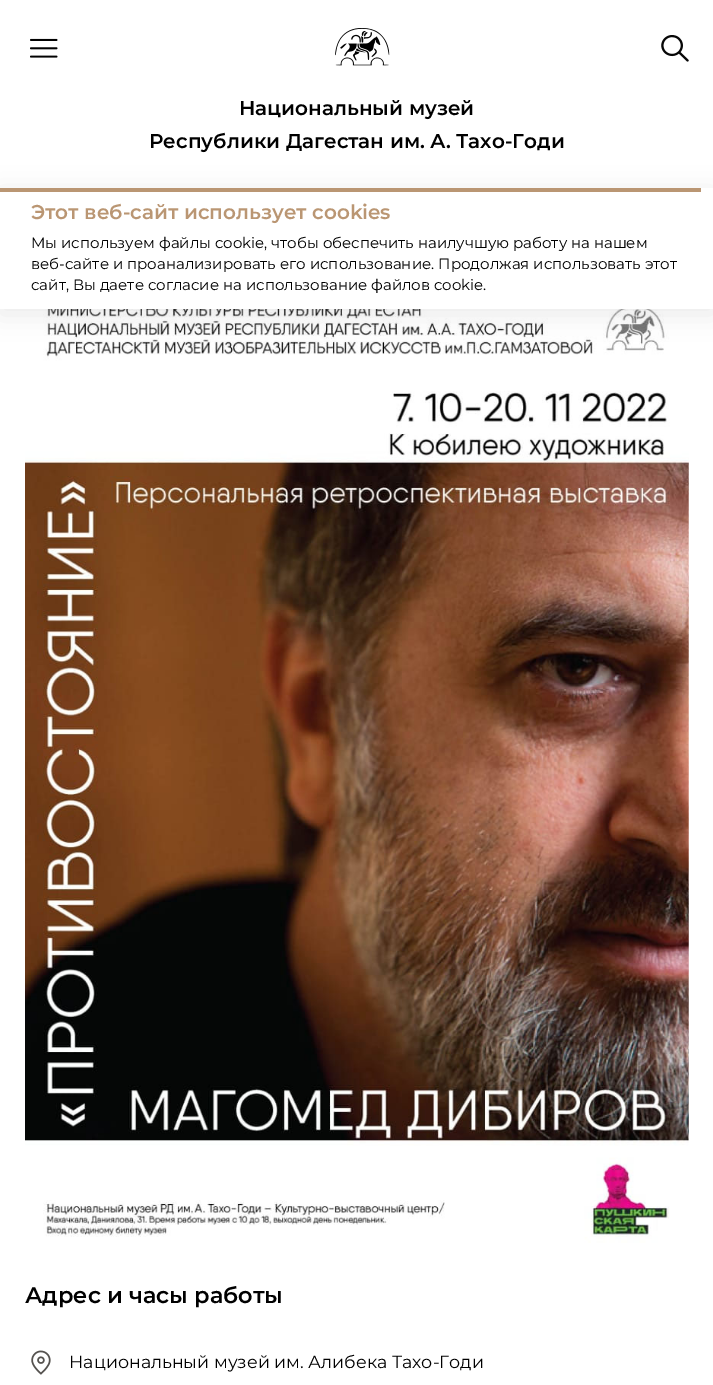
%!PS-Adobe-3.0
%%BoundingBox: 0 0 713 1385
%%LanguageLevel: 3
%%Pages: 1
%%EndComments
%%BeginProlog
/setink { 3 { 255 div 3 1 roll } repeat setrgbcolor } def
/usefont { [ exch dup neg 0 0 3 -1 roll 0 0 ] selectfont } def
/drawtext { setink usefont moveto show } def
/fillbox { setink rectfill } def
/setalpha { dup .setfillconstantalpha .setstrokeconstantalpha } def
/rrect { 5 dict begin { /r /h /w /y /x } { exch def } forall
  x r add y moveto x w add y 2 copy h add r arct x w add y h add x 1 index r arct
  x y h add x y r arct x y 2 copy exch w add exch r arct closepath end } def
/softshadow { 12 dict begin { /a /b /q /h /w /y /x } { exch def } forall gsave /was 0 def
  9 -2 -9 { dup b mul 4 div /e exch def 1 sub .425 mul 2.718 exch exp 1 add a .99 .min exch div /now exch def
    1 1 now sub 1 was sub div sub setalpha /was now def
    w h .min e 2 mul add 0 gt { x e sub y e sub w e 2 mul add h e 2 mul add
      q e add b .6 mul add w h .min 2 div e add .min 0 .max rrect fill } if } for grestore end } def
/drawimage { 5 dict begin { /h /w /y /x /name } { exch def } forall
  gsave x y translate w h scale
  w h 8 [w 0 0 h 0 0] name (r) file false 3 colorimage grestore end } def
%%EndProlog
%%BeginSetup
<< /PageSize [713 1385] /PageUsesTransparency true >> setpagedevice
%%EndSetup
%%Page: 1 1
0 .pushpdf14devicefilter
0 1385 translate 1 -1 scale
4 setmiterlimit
0 0 713 1385 255 255 255 fillbox
(assets/img1.rgb) 30 38 28 20 drawimage
(assets/img2.rgb) 335 28 55 38 drawimage
(assets/img3.rgb) 661 35 28 27 drawimage
(Национальный музей) 239 115 /Montserrat-SemiBold 20 0 0 0 drawtext
(Республики Дагестан им. А. Тахо-Годи) 149 148 /Montserrat-SemiBold 20 0 0 0 drawtext
(assets/img4.rgb) 25 309 664 934 drawimage
0 193 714 121 0 12.5 0.08 softshadow
0 188 713 121 255 255 255 fillbox
0 188 701 4 186 150 115 fillbox
(Этот веб-сайт использует cookies) 31 219 /Montserrat-SemiBold 20 186 150 115 drawtext
(Мы используем файлы cookie, чтобы обеспечить наилучшую работу на нашем) 31 248 /Montserrat-Regular 15 0 0 0 drawtext
(веб-сайте и проанализировать его использование. Продолжая использовать этот) 31 269 /Montserrat-Regular 15 0 0 0 drawtext
(сайт, Вы даете согласие на использование файлов cookie.) 31 290 /Montserrat-Regular 15 0 0 0 drawtext
(Адрес и часы работы) 25 1303 /Montserrat-SemiBold 22.5 0 0 0 drawtext
(assets/img5.rgb) 31 1350 20 25 drawimage
(Национальный музей им. Алибека Тахо-Годи) 69 1368 /Montserrat-Regular 17.5 0 0 0 drawtext
.poppdf14devicefilter showpage
%%EOF
